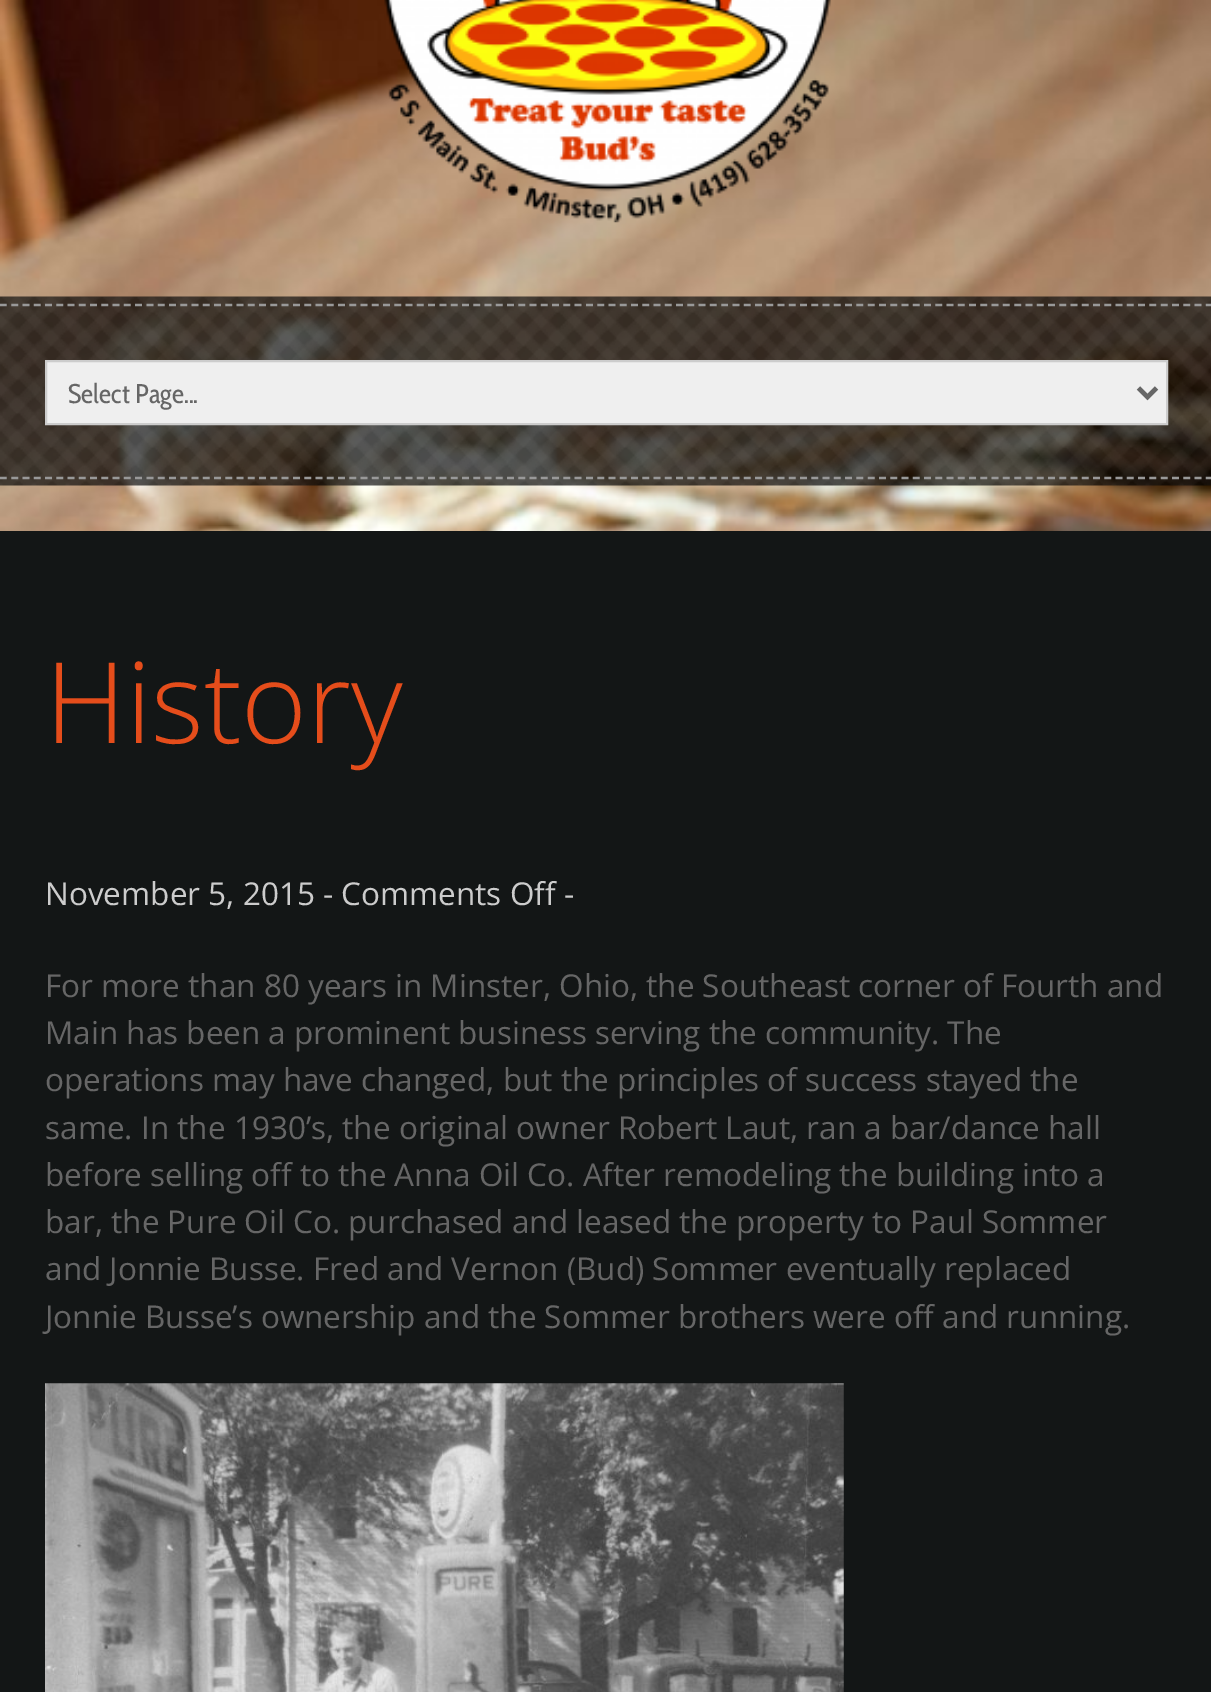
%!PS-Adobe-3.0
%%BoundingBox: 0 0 1211 1692
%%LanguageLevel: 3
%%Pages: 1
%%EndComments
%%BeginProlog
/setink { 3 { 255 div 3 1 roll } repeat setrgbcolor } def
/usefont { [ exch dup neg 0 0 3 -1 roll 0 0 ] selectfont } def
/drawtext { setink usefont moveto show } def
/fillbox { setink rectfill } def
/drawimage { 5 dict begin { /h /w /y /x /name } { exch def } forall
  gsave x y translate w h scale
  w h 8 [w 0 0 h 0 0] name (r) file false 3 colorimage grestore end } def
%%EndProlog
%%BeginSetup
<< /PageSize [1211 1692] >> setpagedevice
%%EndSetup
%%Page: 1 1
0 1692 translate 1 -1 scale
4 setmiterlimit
0 0 1211 1692 19 22 22 fillbox
(assets/img1.rgb) 0 0 1211 531 drawimage
(assets/img2.rgb) 384 0 447 223 drawimage
(assets/img3.rgb) 0 296 1211 190 drawimage
153 153 153 setink
2.2 setlinewidth
[6.75 4.52] 0 setdash
0 305 moveto 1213 305 lineto stroke
0 478 moveto 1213 478 lineto stroke
239 239 239 setink
46 361 moveto 1167 361 lineto 1167 424 lineto 46 424 lineto closepath gsave fill grestore
204 204 204 setink
2 setlinewidth
[] 0 setdash
stroke
102 102 102 setink
4.5 setlinewidth
1138.5 388 moveto 1147.5 397 lineto 1156.5 388 lineto stroke
(Select Page...) 68 403 /CabinCondensed-Regular 27 102 102 102 drawtext
(History) 45 743 /OpenSans-Light 112.5 229 77 27 drawtext
(November 5, 2015 - Comments Off -) 45 905 /OpenSans-Regular 31.5 204 204 204 drawtext
(For more than 80 years in Minster, Ohio, the Southeast corner of Fourth and) 45 997 /OpenSans-Regular 31.5 102 102 102 drawtext
(Main has been a prominent business serving the community. The) 45 1044 /OpenSans-Regular 31.5 102 102 102 drawtext
(operations may have changed, but the principles of success stayed the) 45 1091 /OpenSans-Regular 31.5 102 102 102 drawtext
(same. In the 1930’s, the original owner Robert Laut, ran a bar/dance hall) 45 1139 /OpenSans-Regular 31.5 102 102 102 drawtext
(before selling off to the Anna Oil Co. After remodeling the building into a) 45 1186 /OpenSans-Regular 31.5 102 102 102 drawtext
(bar, the Pure Oil Co. purchased and leased the property to Paul Sommer) 45 1233 /OpenSans-Regular 31.5 102 102 102 drawtext
(and Jonnie Busse. Fred and Vernon \(Bud\) Sommer eventually replaced) 45 1280 /OpenSans-Regular 31.5 102 102 102 drawtext
(Jonnie Busse’s ownership and the Sommer brothers were off and running.) 45 1328 /OpenSans-Regular 31.5 102 102 102 drawtext
(assets/img4.rgb) 45 1383 799 309 drawimage
showpage
%%EOF
